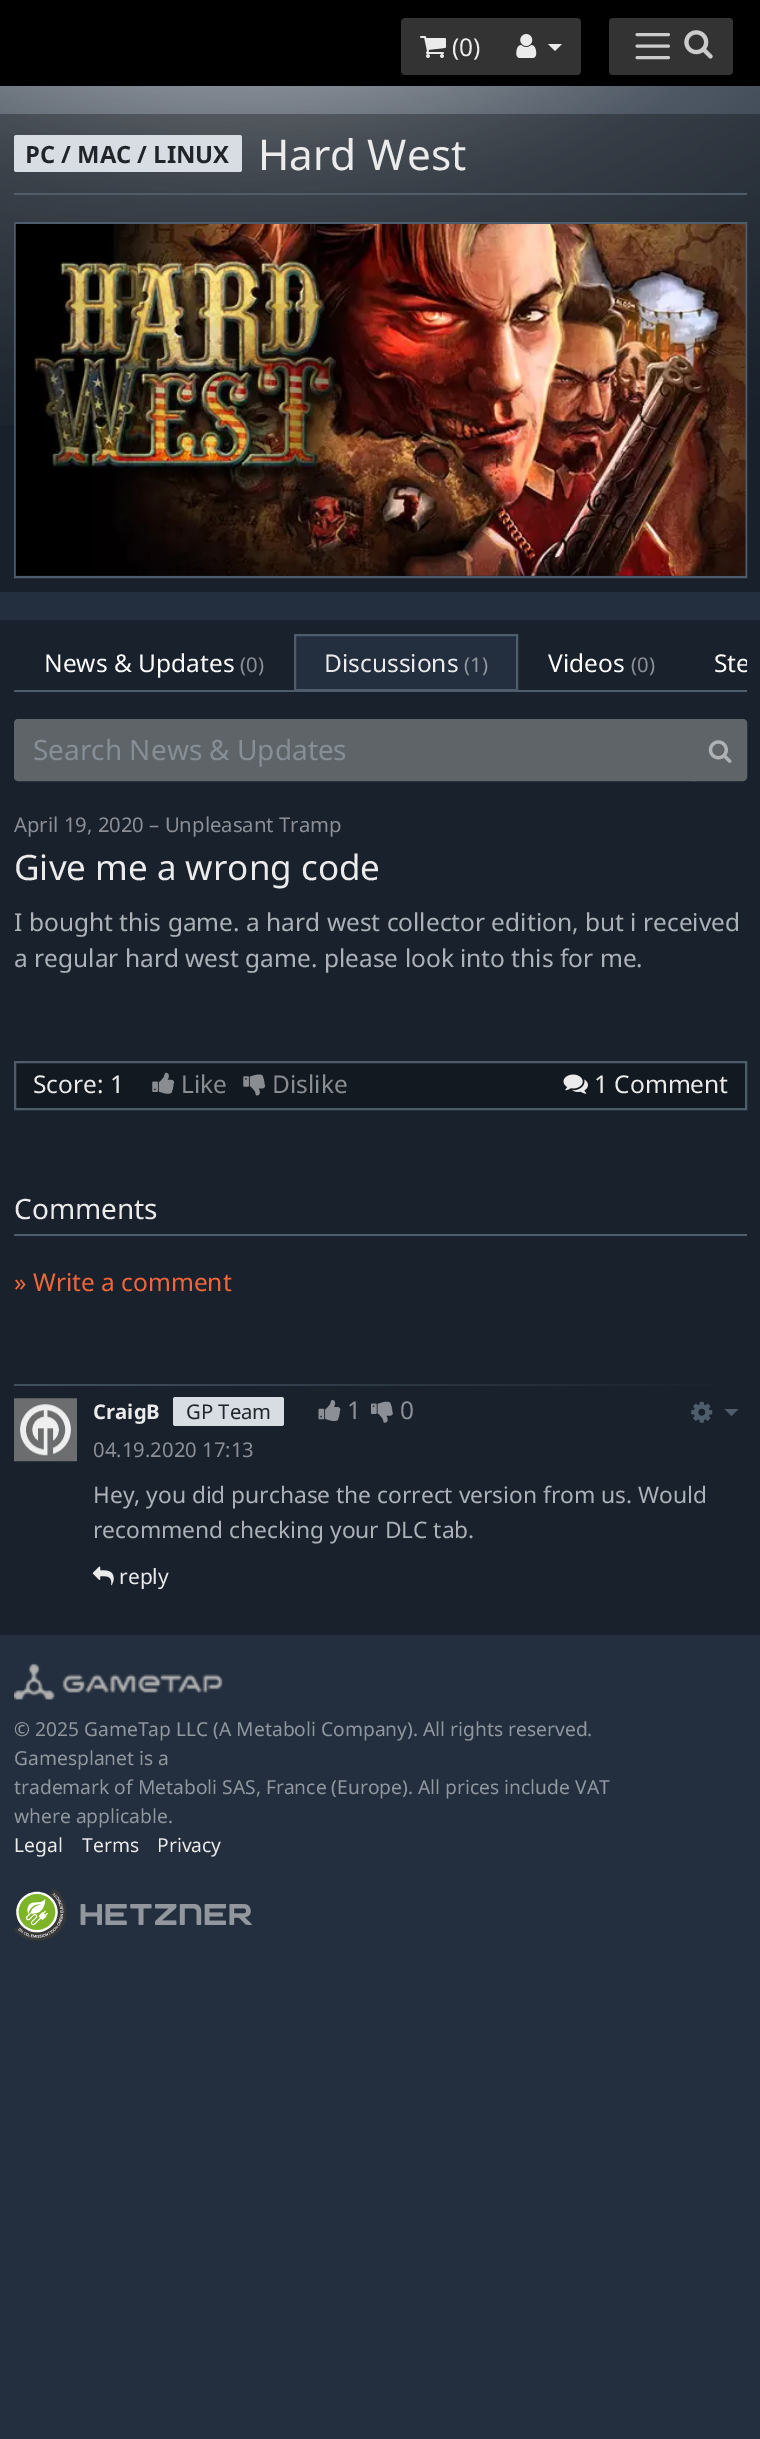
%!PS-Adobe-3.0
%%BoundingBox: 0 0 760 2439
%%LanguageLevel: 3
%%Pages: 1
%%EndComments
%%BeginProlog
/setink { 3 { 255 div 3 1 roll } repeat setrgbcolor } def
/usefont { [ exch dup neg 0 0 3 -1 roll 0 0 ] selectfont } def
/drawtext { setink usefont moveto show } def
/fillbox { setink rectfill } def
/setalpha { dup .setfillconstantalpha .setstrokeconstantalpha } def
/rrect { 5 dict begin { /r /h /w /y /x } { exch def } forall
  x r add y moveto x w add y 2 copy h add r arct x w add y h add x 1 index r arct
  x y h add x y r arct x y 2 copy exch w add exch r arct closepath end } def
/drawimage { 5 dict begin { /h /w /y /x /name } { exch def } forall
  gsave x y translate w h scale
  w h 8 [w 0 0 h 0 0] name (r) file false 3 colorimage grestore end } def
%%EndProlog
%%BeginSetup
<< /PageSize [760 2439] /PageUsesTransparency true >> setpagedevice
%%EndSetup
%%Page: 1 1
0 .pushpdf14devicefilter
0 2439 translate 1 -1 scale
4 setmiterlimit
0 0 760 2439 35 47 62 fillbox
(assets/img1.rgb) 0 86 760 339 drawimage
0 0 760 86 0 0 0 fillbox
51 51 51 setink
405 18 moveto 499 18 lineto 499 75 lineto 405 75 lineto 403 75 401 73 401 71 curveto 401 22 lineto 401 20 403 18 405 18 curveto closepath fill
(assets/img2.rgb) 420 36 26 22 drawimage
(\(0\)) 452 56 /NotoSans-Regular 24.5 235 235 235 drawtext
51 51 51 setink
497 18 moveto 577 18 lineto 579 18 581 20 581 22 curveto 581 71 lineto 581 73 579 75 577 75 curveto 497 75 lineto closepath fill
(assets/img3.rgb) 516 34 21 24 drawimage
235 235 235 setink
548 44 moveto 562 44 lineto 555 51 lineto closepath fill
51 51 51 setink
609 18 124 57 4 rrect fill
204 204 204 setink
2.9 setlinewidth
1 setlinecap
637 34.5 moveto 668.5 34.5 lineto 637 46 moveto 668.5 46 lineto 637 57.5 moveto 668.5 57.5 lineto stroke
(assets/img4.rgb) 684 30 29 29 drawimage
0.3 setalpha
0 114 760 478 0 0 0 fillbox
1 setalpha
215 221 226 setink
14 135 228 37 2.5 rrect fill
(PC / MAC / LINUX) 25 163 /NotoSans-Bold 23.75 33 37 41 drawtext
14 193 733 2 78 93 108 fillbox
(Hard West) 258 170 /NotoSans-Regular 42.25 235 235 235 drawtext
78 93 108 setink
2 setlinewidth
0 setlinecap
15 223 731 354 rectstroke
(assets/img5.rgb) 15 224 731 352 drawimage
0 620 760 1015 25 33 44 fillbox
14 690 733 2 78 93 108 fillbox
(News & Updates) 44 672 /NotoSans-Regular 24.5 255 255 255 drawtext
(\(0\)) 240 672 /NotoSans-Regular 20.3 140 144 150 drawtext
296 636 220 53 35 47 62 fillbox
gsave
14 634 733 56 rectclip
78 93 108 setink
295 635 222 55 rectstroke
grestore
(Discussions) 324 672 /NotoSans-Regular 24.5 235 235 235 drawtext
(\(1\)) 464 672 /NotoSans-Regular 20.3 145 151 159 drawtext
(Videos) 548 672 /NotoSans-Regular 24.5 255 255 255 drawtext
(\(0\)) 631 672 /NotoSans-Regular 20.3 140 144 150 drawtext
gsave
14 634 733 56 rectclip
(Ste) 714 672 /NotoSans-Regular 24.5 255 255 255 drawtext
grestore
95 100 104 setink
18 720 moveto 694 720 lineto 694 780 lineto 18 780 lineto 16.5 780 15 778.5 15 777 curveto 15 723 lineto 15 721.5 16.5 720 18 720 curveto closepath gsave fill grestore
stroke
(Search News & Updates) 33 760 /NotoSans-Regular 28 134 142 150 drawtext
95 100 104 setink
694 720 moveto 743 720 lineto 744.5 720 746 721.5 746 723 curveto 746 777 lineto 746 778.5 744.5 780 743 780 curveto 694 780 lineto closepath gsave fill grestore
stroke
(assets/img6.rgb) 708 740 24 23 drawimage
(April 19, 2020 – Unpleasant Tramp) 14 832 /NotoSans-Regular 20.3 140 144 150 drawtext
(Give me a wrong code) 14 880 /NotoSans-Regular 35 235 235 235 drawtext
(I bought this game. a hard west collector edition, but i received) 14 931 /NotoSans-Regular 24.5 172 178 184 drawtext
(a regular hard west game. please look into this for me.) 14 967 /NotoSans-Regular 24.5 172 178 184 drawtext
19 25 33 setink
15 1062 moveto 746 1062 lineto 746 1109 lineto 15 1109 lineto closepath gsave fill grestore
78 93 108 setink
stroke
(Score: 1) 33 1093 /NotoSans-Regular 24.5 235 235 235 drawtext
(assets/img7.rgb) 152 1072 23 22 drawimage
(Like) 181 1093 /NotoSans-Regular 24.5 137 140 144 drawtext
(assets/img8.rgb) 243 1074 23 22 drawimage
(Dislike) 272 1093 /NotoSans-Regular 24.5 137 140 144 drawtext
(assets/img9.rgb) 563 1074 25 20 drawimage
(1 Comment) 594 1093 /NotoSans-Regular 24.5 235 235 235 drawtext
14 1234 733 2 78 93 108 fillbox
(Comments) 14 1219 /NotoSans-Regular 28 235 235 235 drawtext
(» Write a comment) 14 1291 /NotoSans-Regular 24.5 242 102 56 drawtext
gsave 14 1384 moveto 711 1384 lineto 711 1386 lineto 14 1386 lineto closepath clip newpath
<< /ShadingType 2 /ColorSpace /DeviceRGB /Coords [14 1385 747 1385] /Extend [true true] /Function << /FunctionType 2 /Domain [0 1] /C0 [0.263 0.318 0.373] /C1 [0.098 0.129 0.173] /N 1 >> >> shfill grestore
(assets/img10.rgb) 14 1398 63 64 drawimage
(CraigB) 93 1419 /NotoSans-Bold 20.3 235 235 235 drawtext
215 221 226 setink
173 1397 111 29 2.5 rrect fill
(GP Team) 186 1419 /NotoSans-Regular 20.3 33 37 41 drawtext
(assets/img11.rgb) 318 1400 23 21 drawimage
(1) 347 1419 /NotoSans-Regular 24.5 140 144 150 drawtext
(assets/img12.rgb) 371 1401 22 22 drawimage
(0) 400 1419 /NotoSans-Regular 24.5 140 144 150 drawtext
(assets/img13.rgb) 691 1401 22 22 drawimage
78 93 108 setink
724.5 1409 moveto 738.5 1409 lineto 731.5 1416 lineto closepath fill
(04.19.2020 17:13) 93 1457 /NotoSans-Regular 20.3 140 144 150 drawtext
(Hey, you did purchase the correct version from us. Would) 93 1503 /NotoSans-Regular 22.75 172 178 184 drawtext
(recommend checking your DLC tab.) 93 1538 /NotoSans-Regular 22.75 172 178 184 drawtext
(assets/img14.rgb) 92 1566 22 20 drawimage
(reply) 119 1584 /NotoSans-Regular 21 235 235 235 drawtext
(assets/img15.rgb) 14 1663 209 37 drawimage
(© 2025 GameTap LLC \(A Metaboli Company\). All rights reserved.) 14 1736 /NotoSans-Regular 19.25 145 151 159 drawtext
(Gamesplanet is a) 14 1765 /NotoSans-Regular 19.25 145 151 159 drawtext
(trademark of Metaboli SAS, France \(Europe\). All prices include VAT) 14 1794 /NotoSans-Regular 19.25 145 151 159 drawtext
(where applicable.) 14 1823 /NotoSans-Regular 19.25 145 151 159 drawtext
(Legal) 14 1852 /NotoSans-Regular 19.25 235 235 235 drawtext
(Terms) 82 1852 /NotoSans-Regular 19.25 235 235 235 drawtext
(Privacy) 157 1852 /NotoSans-Regular 19.25 235 235 235 drawtext
(assets/img16.rgb) 14 1888 53 53 drawimage
(assets/img17.rgb) 80 1904 172 21 drawimage
.poppdf14devicefilter showpage
%%EOF
